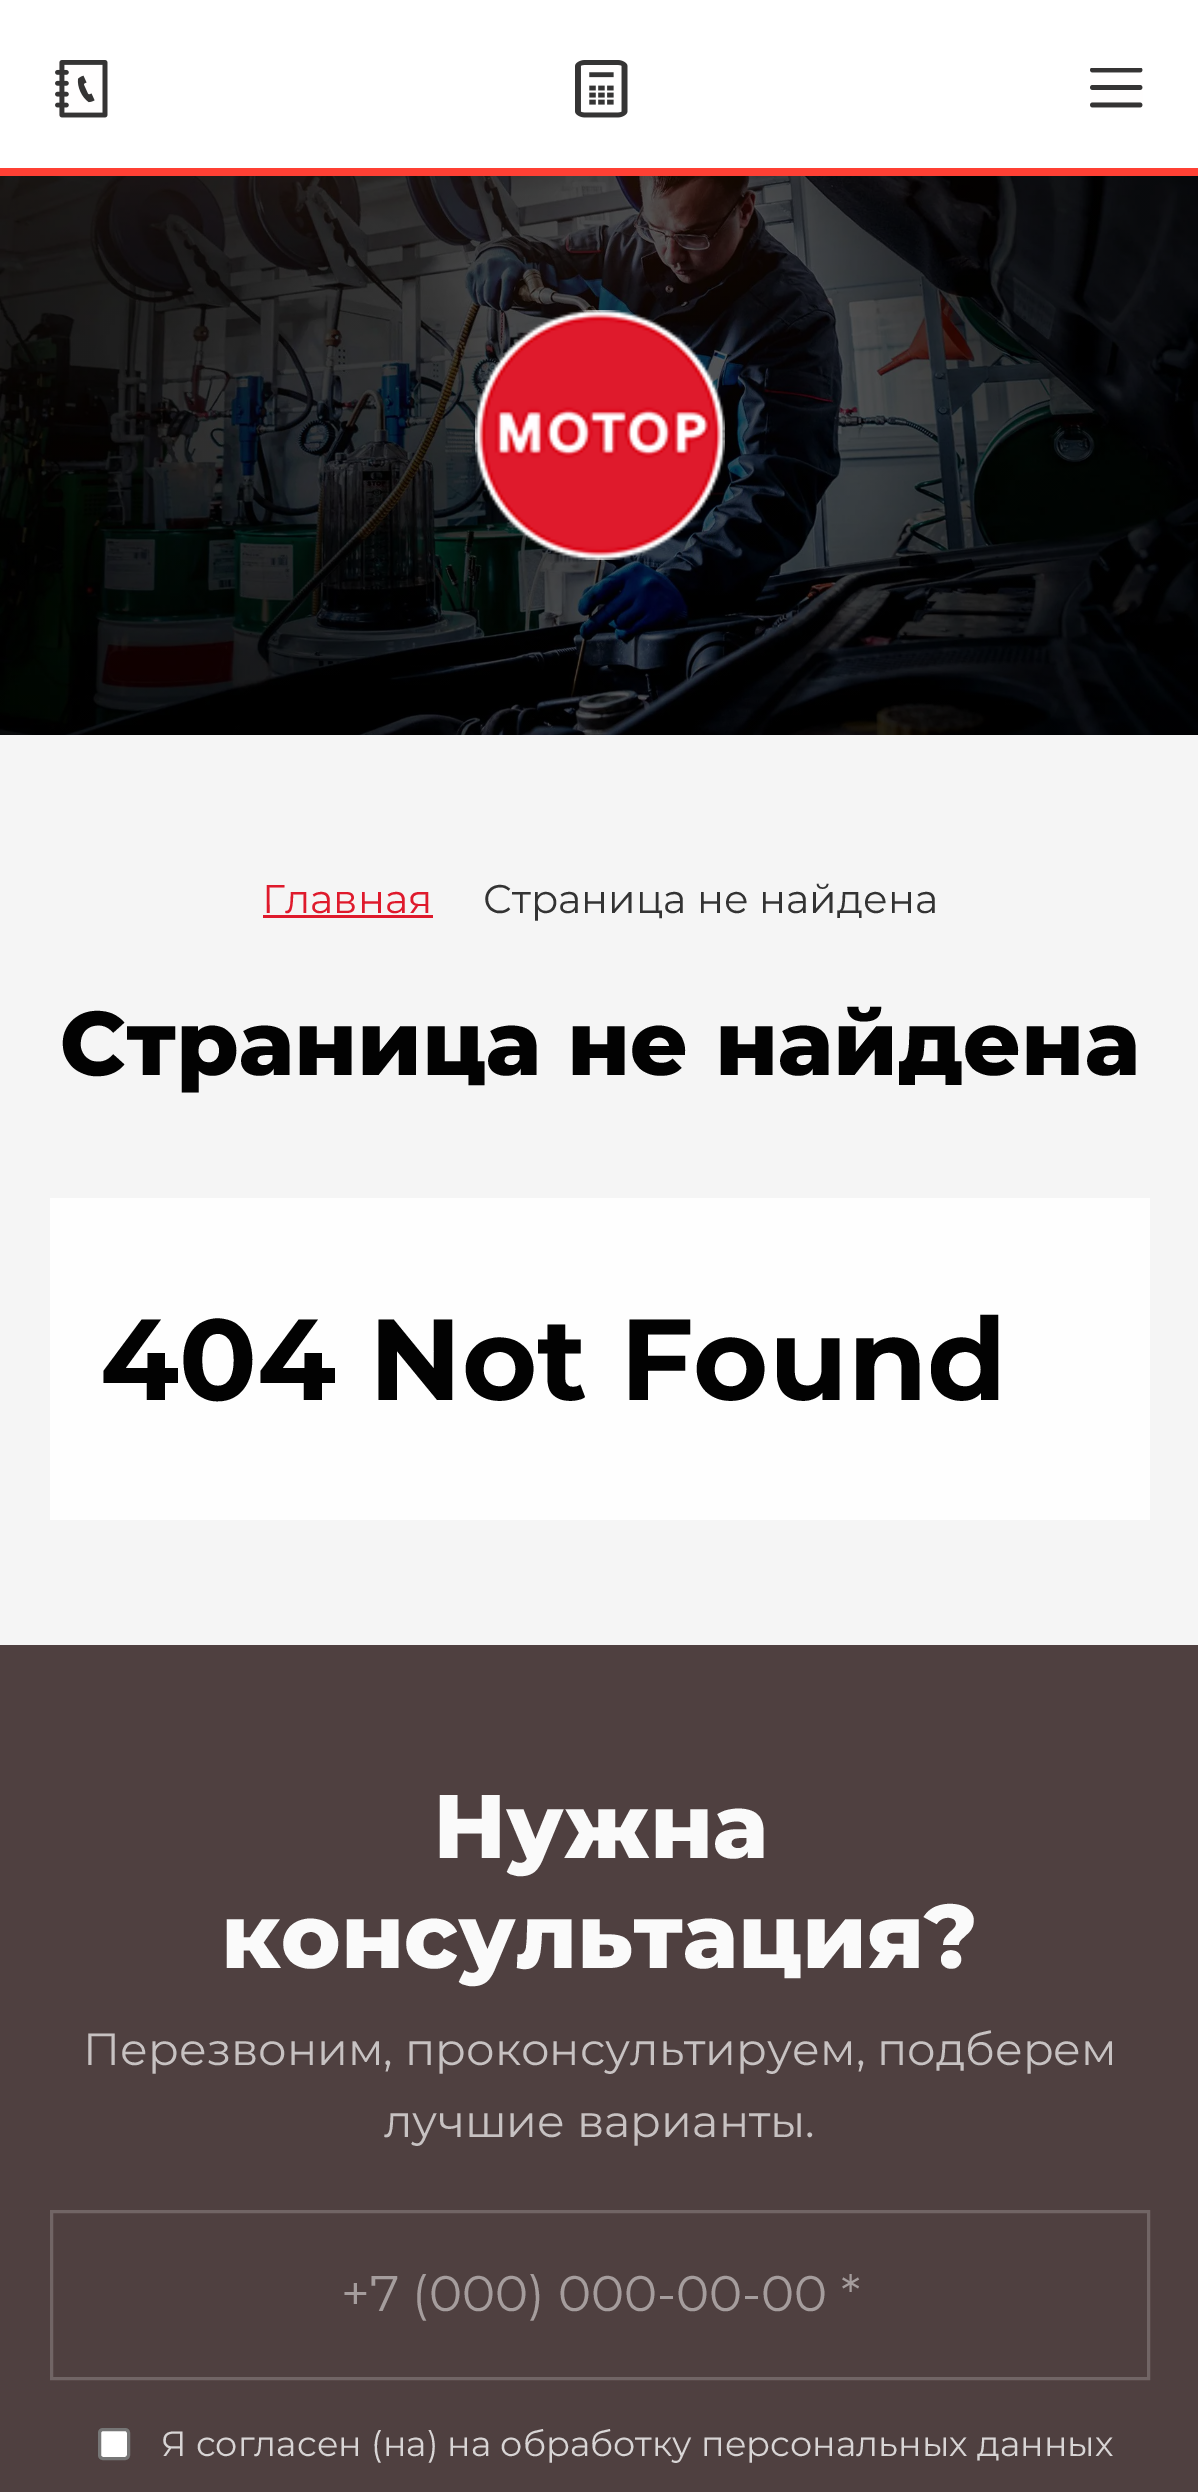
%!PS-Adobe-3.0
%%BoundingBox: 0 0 1198 2492
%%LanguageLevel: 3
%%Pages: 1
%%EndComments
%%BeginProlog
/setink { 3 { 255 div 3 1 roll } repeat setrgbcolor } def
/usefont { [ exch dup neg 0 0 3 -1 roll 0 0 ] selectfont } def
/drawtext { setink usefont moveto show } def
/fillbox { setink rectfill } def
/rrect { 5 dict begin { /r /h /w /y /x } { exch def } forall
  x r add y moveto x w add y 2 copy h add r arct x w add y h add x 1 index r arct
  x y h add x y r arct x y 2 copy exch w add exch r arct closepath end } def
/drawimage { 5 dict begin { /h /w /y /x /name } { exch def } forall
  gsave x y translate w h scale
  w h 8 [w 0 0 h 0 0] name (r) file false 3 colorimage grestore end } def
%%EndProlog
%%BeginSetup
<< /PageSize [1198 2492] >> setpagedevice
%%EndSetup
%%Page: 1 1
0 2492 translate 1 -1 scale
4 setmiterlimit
0 0 1198 2492 255 255 255 fillbox
0 168 1198 8 255 64 52 fillbox
(assets/img1.rgb) 55 60 53 58 drawimage
(assets/img2.rgb) 575 60 53 58 drawimage
(assets/img3.rgb) 1090 68 53 40 drawimage
(assets/img4.rgb) 0 176 1198 559 drawimage
(assets/img5.rgb) 475 310 250 250 drawimage
0 735 1198 910 245 245 245 fillbox
(Главная) 262 913 /Montserrat-Regular 40 223 26 44 drawtext
263 915 170 3 223 26 44 fillbox
(Страница не найдена) 483 913 /Montserrat-Regular 40 51 51 51 drawtext
(Страница не найдена) 60 1075 /Montserrat-ExtraBold 90 2 2 2 drawtext
50 1198 1100 322 254 254 254 fillbox
(404 Not Found) 100 1400 /Montserrat-Bold 115 2 2 2 drawtext
0 1645 1198 847 79 64 64 fillbox
(Нужна) 433 1858 /Montserrat-ExtraBold 90 250 250 250 drawtext
(консультация?) 221 1968 /Montserrat-ExtraBold 90 250 250 250 drawtext
(Перезвоним, проконсультируем, подберем) 83 2065 /Montserrat-Regular 45 199 194 194 drawtext
(лучшие варианты.) 384 2137 /Montserrat-Regular 45 199 194 194 drawtext
113 101 101 setink
3 setlinewidth
51.5 2211.5 1097 167 rectstroke
(+7 \(000\) 000-00-00 *) 341 2311 /Montserrat-Regular 50 165 157 157 drawtext
255 255 255 setink
99.5 2429.5 29 29 3.5 rrect gsave fill grestore
118 118 118 setink
stroke
(Я согласен \(на\) на обработку персональных данных) 161 2456 /Montserrat-Regular 35 216 213 213 drawtext
showpage
%%EOF
